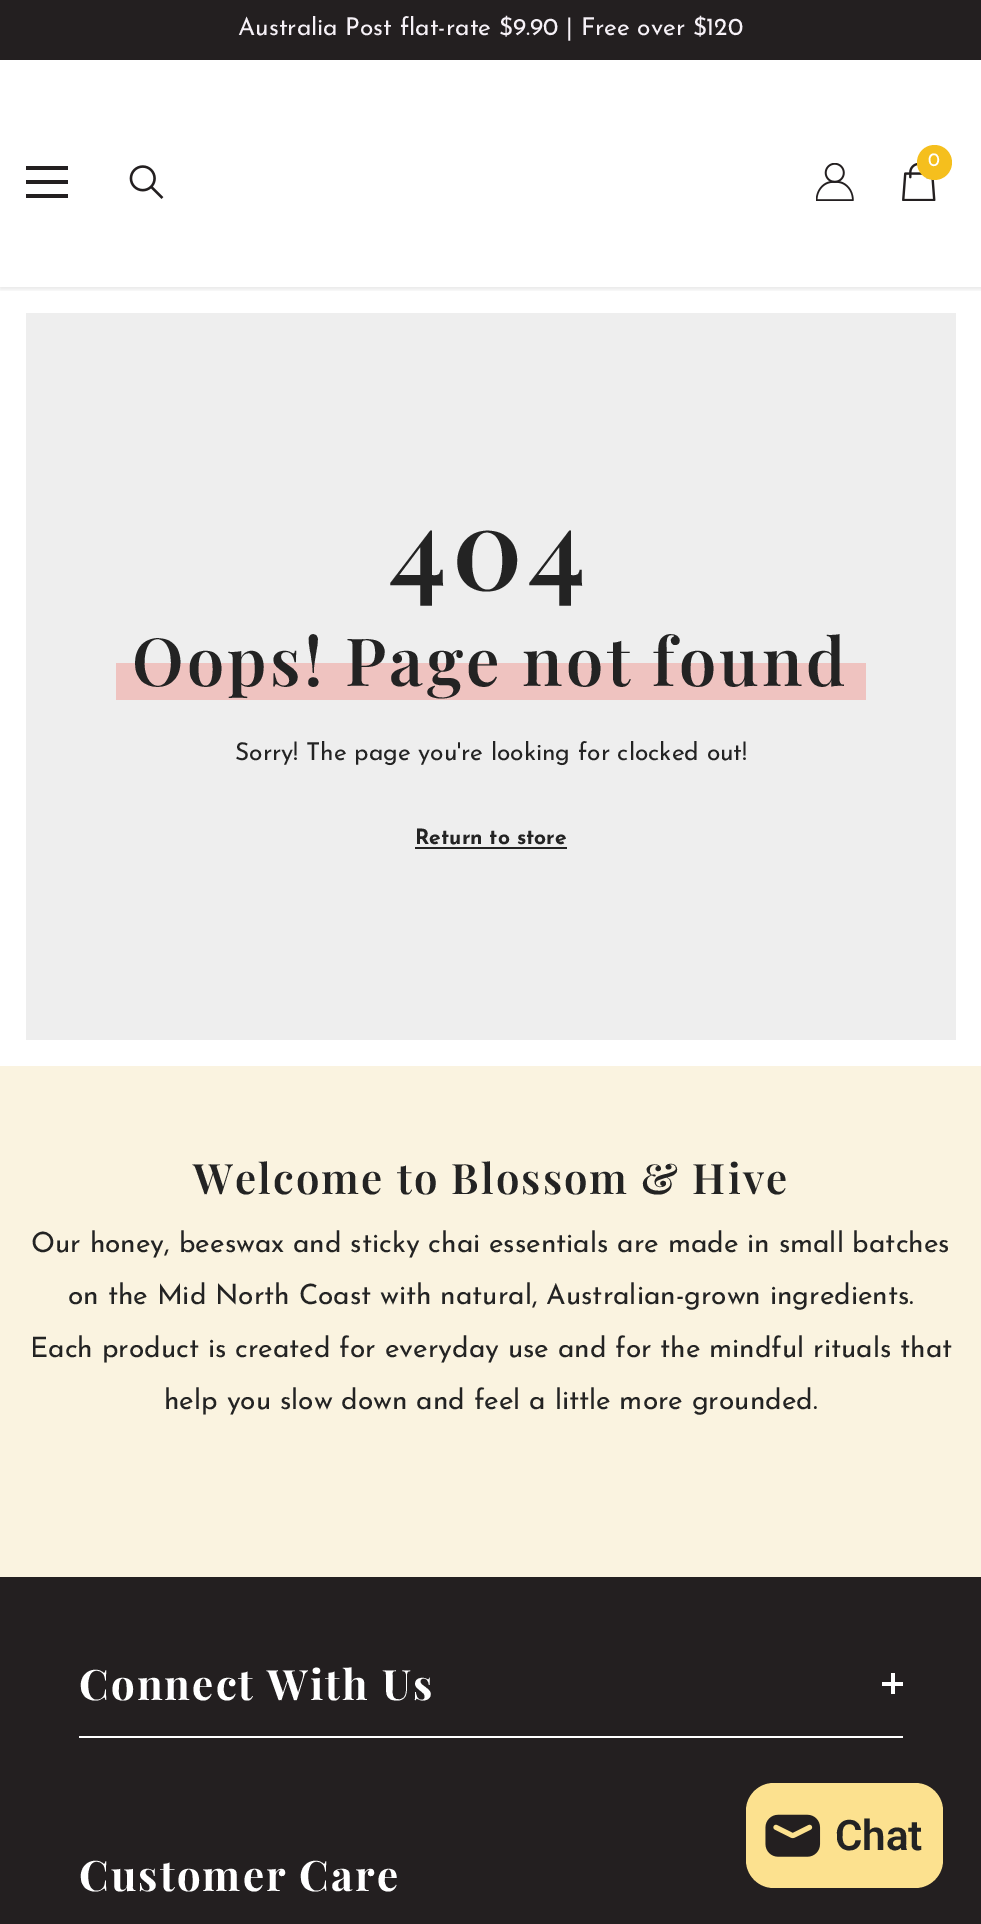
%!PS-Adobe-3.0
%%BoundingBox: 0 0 981 1924
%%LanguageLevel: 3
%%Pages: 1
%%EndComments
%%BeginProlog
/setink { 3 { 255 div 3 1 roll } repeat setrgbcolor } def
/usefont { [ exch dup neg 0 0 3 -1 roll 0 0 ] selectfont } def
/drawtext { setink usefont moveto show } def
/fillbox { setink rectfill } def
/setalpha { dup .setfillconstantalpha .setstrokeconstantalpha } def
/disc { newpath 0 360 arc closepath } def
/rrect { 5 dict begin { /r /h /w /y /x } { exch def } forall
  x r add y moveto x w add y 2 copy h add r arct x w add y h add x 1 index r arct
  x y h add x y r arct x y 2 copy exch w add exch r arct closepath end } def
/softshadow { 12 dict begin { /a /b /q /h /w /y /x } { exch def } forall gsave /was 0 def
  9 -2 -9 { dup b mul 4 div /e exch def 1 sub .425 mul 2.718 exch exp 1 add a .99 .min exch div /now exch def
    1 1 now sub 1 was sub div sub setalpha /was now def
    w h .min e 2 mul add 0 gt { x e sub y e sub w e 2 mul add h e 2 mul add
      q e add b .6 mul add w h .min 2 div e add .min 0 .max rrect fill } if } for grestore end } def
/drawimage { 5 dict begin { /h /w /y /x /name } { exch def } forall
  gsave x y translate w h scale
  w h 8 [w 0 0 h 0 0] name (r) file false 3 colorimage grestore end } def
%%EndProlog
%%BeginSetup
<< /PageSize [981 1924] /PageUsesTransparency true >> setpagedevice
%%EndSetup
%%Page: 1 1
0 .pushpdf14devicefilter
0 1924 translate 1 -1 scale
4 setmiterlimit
0 0 981 1924 255 255 255 fillbox
0 0 981 60 35 31 32 fillbox
(Australia Post flat-rate $9.90 | Free over $120) 238 35 /JosefinSans-Regular 24.5 246 241 247 drawtext
gsave
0 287 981 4 rectclip
0 0 0 setink
0 61 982 228 0 2.5 0.1 softshadow
grestore
(assets/img1.rgb) 902 163 34 38 drawimage
245 191 29 setink
934.5 162.5 17.5 disc fill
(0) 928 166 /JosefinSans-Regular 19 255 255 255 drawtext
26 180 42 4 35 31 32 fillbox
26 166 42 4 35 31 32 fillbox
26 194 42 4 35 31 32 fillbox
(assets/img2.rgb) 129 165 35 34 drawimage
(assets/img3.rgb) 816 163 38 38 drawimage
26 313 930 727 238 238 238 fillbox
/PlayfairDisplay-SemiBold 112 usefont
35 35 35 setink
389 590 moveto 5.5 0 (404) ashow
116 663 750 37 239 195 192 fillbox
/PlayfairDisplay-SemiBold 66.5 usefont
35 35 35 setink
132 686 moveto 3.3 0 (Oops! Page not found) ashow
(Sorry! The page you're looking for clocked out!) 235 760 /JosefinSans-Regular 24.5 35 35 35 drawtext
(Return to store) 415 844 /JosefinSans-Bold 21 35 35 35 drawtext
415 847 152 2 35 35 35 fillbox
0 1066 981 511 250 243 224 fillbox
/PlayfairDisplay-SemiBold 42 usefont
35 35 35 setink
193 1194 moveto 2.1 0 (Welcome to Blossom & Hive) ashow
(Our honey, beeswax and sticky chai essentials are made in small batches) 31 1252 /JosefinSans-Regular 28 35 35 35 drawtext
(on the Mid North Coast with natural, Australian-grown ingredients.) 68 1304 /JosefinSans-Regular 28 35 35 35 drawtext
(Each product is created for everyday use and for the mindful rituals that) 30 1357 /JosefinSans-Regular 28 35 35 35 drawtext
(help you slow down and feel a little more grounded.) 164 1409 /JosefinSans-Regular 28 35 35 35 drawtext
0 1577 981 347 35 31 32 fillbox
79 1736 824 2 255 255 255 fillbox
/PlayfairDisplay-Bold 42 usefont
79 1700 moveto 2.1 0 (Connect With Us) ashow
891 1673 4 21 255 255 255 fillbox
882 1682 21 4 255 255 255 fillbox
79 1891 moveto 2.1 0 (Customer Care) ashow
252 225 143 setink
746 1783 197 105 28 rrect fill
(assets/img4.rgb) 765 1814 56 43 drawimage
(Chat) 835 1850 /Roboto-SemiBold 42 35 35 35 drawtext
.poppdf14devicefilter showpage
%%EOF
